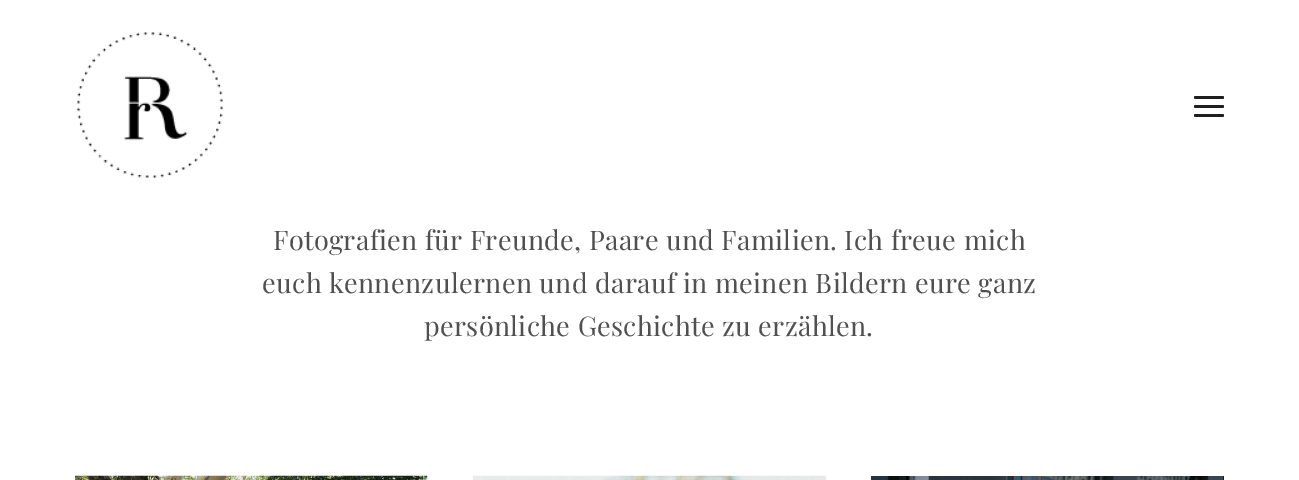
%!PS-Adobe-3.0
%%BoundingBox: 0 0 1299 480
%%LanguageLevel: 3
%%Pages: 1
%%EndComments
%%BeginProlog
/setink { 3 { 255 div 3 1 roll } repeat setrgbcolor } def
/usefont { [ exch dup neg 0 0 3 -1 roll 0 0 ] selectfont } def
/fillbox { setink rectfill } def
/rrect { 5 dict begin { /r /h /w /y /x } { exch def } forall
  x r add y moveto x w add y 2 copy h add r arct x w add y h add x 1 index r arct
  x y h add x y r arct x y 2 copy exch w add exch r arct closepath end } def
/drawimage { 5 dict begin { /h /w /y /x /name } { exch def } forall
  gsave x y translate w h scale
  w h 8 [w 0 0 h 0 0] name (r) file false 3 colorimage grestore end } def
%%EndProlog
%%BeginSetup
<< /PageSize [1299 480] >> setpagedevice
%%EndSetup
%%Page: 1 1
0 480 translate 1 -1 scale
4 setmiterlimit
0 0 1299 480 255 255 255 fillbox
(assets/img1.rgb) 77 32 146 146 drawimage
31 31 31 setink
1194 96 30 3 1.5 rrect fill
1194 105 30 3 1.5 rrect fill
1194 114 30 3 1.5 rrect fill
/PlayfairDisplay-Regular 27 usefont
80 80 80 setink
273 250 moveto 0.35 0 (Fotografien für Freunde, Paare und Familien. Ich freue mich) ashow
262 293 moveto 0.35 0 (euch kennenzulernen und darauf in meinen Bildern eure ganz) ashow
424 336 moveto 0.35 0 (persönliche Geschichte zu erzählen.) ashow
(assets/img2.rgb) 75 475 353 5 drawimage
(assets/img3.rgb) 472 475 355 5 drawimage
(assets/img4.rgb) 871 476 353 4 drawimage
showpage
%%EOF
